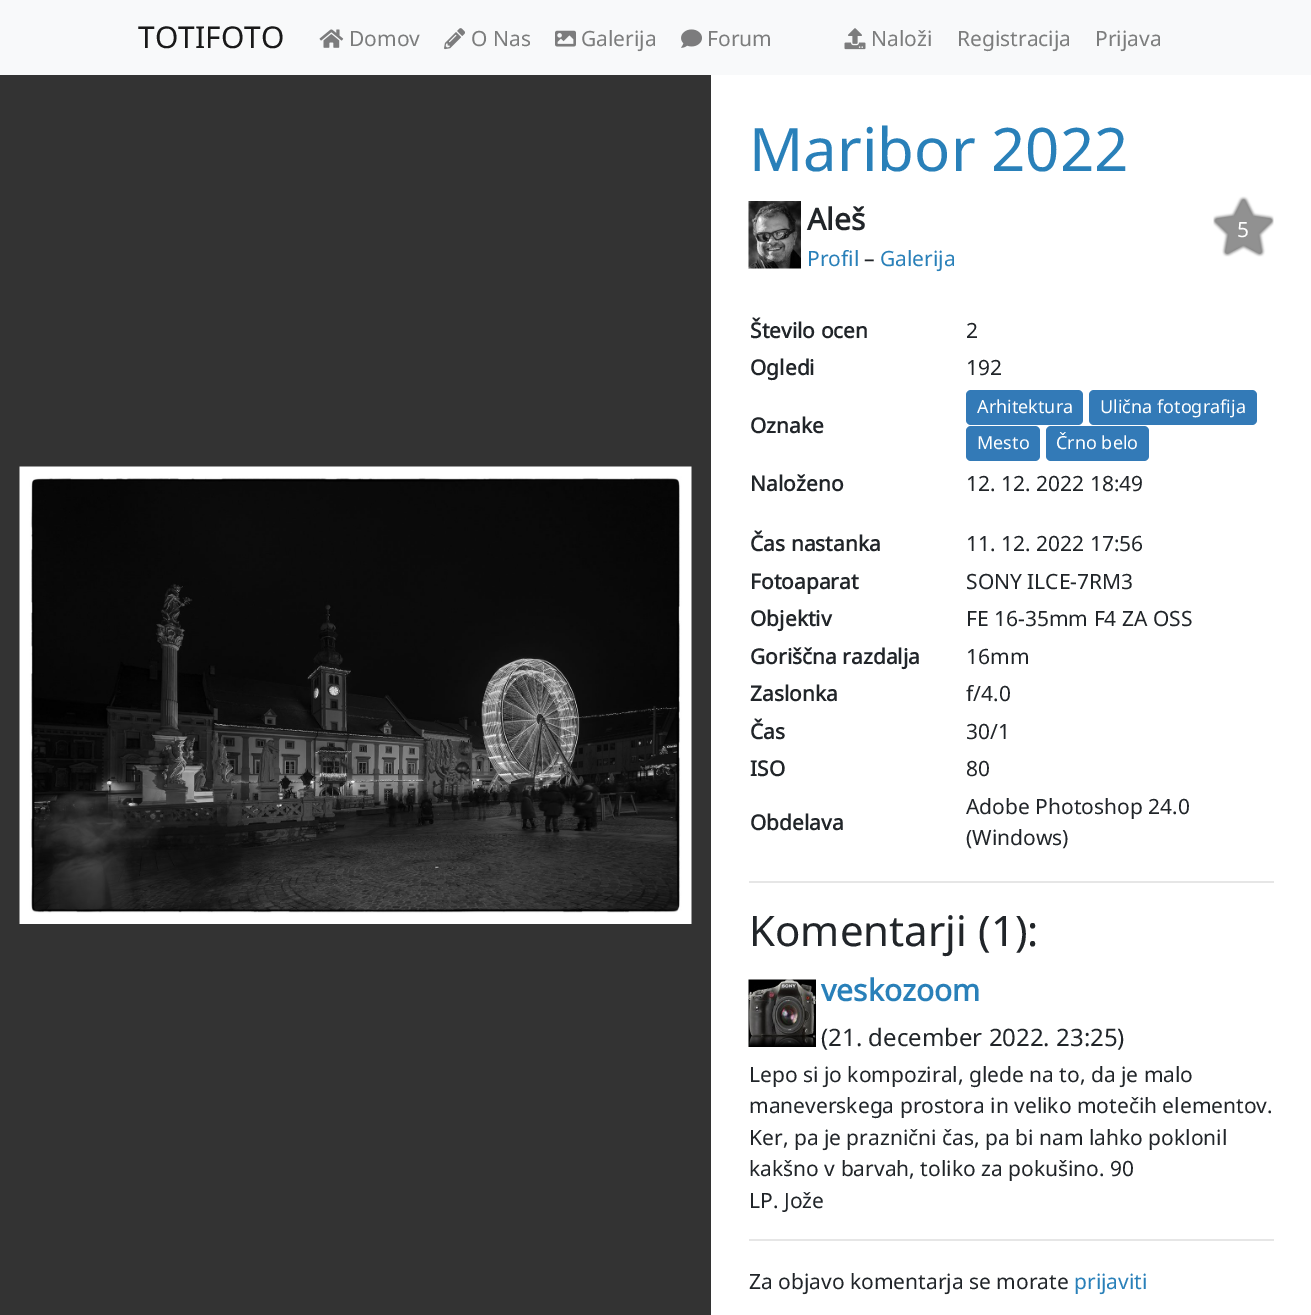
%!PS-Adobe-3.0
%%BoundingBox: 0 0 1311 1315
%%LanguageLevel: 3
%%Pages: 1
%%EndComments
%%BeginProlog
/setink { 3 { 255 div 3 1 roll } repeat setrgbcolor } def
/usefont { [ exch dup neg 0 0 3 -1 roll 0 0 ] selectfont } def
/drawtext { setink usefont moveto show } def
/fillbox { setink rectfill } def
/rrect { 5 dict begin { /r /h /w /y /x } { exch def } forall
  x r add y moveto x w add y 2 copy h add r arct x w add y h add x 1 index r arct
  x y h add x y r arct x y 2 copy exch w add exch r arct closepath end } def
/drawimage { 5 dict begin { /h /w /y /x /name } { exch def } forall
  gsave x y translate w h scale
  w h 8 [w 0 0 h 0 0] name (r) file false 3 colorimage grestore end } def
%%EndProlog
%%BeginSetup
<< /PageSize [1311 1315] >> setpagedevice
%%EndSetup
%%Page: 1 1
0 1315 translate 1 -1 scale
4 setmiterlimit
0 0 1311 1315 255 255 255 fillbox
0 0 1311 75 248 249 250 fillbox
(TOTIFOTO) 138 48 /NotoSans-Regular 30 25 25 25 drawtext
(assets/img1.rgb) 319 29 25 19 drawimage
(Domov) 349 46 /NotoSans-Regular 21 124 125 125 drawtext
(assets/img2.rgb) 444 28 21 22 drawimage
(O Nas) 471 46 /NotoSans-Regular 21 124 125 125 drawtext
(assets/img3.rgb) 555 30 21 17 drawimage
(Galerija) 581 46 /NotoSans-Regular 21 124 125 125 drawtext
(assets/img4.rgb) 681 29 21 19 drawimage
(Forum) 707 46 /NotoSans-Regular 21 124 125 125 drawtext
(assets/img5.rgb) 844 28 22 22 drawimage
(Naloži) 871 46 /NotoSans-Regular 21 124 125 125 drawtext
(Registracija) 957 46 /NotoSans-Regular 21 124 125 125 drawtext
(Prijava) 1095 46 /NotoSans-Regular 21 124 125 125 drawtext
0 75 711 1240 51 51 51 fillbox
(assets/img6.rgb) 19 466 673 458 drawimage
(Maribor 2022) 749 171 /NotoSans-Regular 60 41 128 185 drawtext
(assets/img7.rgb) 748 201 53 68 drawimage
(Aleš) 807 230 /NotoSans-Bold 30 33 37 41 drawtext
(Profil) 807 266 /NotoSans-Regular 21 41 128 185 drawtext
(–) 864 266 /NotoSans-Regular 21 33 37 41 drawtext
(Galerija) 880 266 /NotoSans-Regular 21 41 128 185 drawtext
(assets/img8.rgb) 1213 196 61 61 drawimage
(5) 1237 237 /NotoSans-Regular 21 255 255 255 drawtext
(Število ocen) 750 338 /NotoSans-Bold 21 33 37 41 drawtext
(2) 966 338 /NotoSans-Regular 21 33 37 41 drawtext
(Ogledi) 750 375 /NotoSans-Bold 21 33 37 41 drawtext
(192) 966 375 /NotoSans-Regular 21 33 37 41 drawtext
(Oznake) 750 433 /NotoSans-Bold 21 33 37 41 drawtext
51 122 183 setink
966 390 117 35 5 rrect fill
(Arhitektura) 977 413 /NotoSans-Regular 18 255 255 255 drawtext
51 122 183 setink
1089 390 168 35 5 rrect fill
(Ulična fotografija) 1100 413 /NotoSans-Regular 18 255 255 255 drawtext
51 122 183 setink
966 426 74 35 5 rrect fill
(Mesto) 977 449 /NotoSans-Regular 18 255 255 255 drawtext
51 122 183 setink
1046 426 103 35 5 rrect fill
(Črno belo) 1056 449 /NotoSans-Regular 18 255 255 255 drawtext
(Naloženo) 750 491 /NotoSans-Bold 21 33 37 41 drawtext
(12. 12. 2022 18:49) 966 491 /NotoSans-Regular 21 33 37 41 drawtext
(Čas nastanka) 750 551 /NotoSans-Bold 21 33 37 41 drawtext
(11. 12. 2022 17:56) 966 551 /NotoSans-Regular 21 33 37 41 drawtext
(Fotoaparat) 750 589 /NotoSans-Bold 21 33 37 41 drawtext
(SONY ILCE-7RM3) 966 589 /NotoSans-Regular 21 33 37 41 drawtext
(Objektiv) 750 626 /NotoSans-Bold 21 33 37 41 drawtext
(FE 16-35mm F4 ZA OSS) 966 626 /NotoSans-Regular 21 33 37 41 drawtext
(Goriščna razdalja) 750 664 /NotoSans-Bold 21 33 37 41 drawtext
(16mm) 966 664 /NotoSans-Regular 21 33 37 41 drawtext
(Zaslonka) 750 701 /NotoSans-Bold 21 33 37 41 drawtext
(f/4.0) 966 701 /NotoSans-Regular 21 33 37 41 drawtext
(Čas) 750 739 /NotoSans-Bold 21 33 37 41 drawtext
(30/1) 966 739 /NotoSans-Regular 21 33 37 41 drawtext
(ISO) 750 776 /NotoSans-Bold 21 33 37 41 drawtext
(80) 966 776 /NotoSans-Regular 21 33 37 41 drawtext
(Obdelava) 750 830 /NotoSans-Bold 21 33 37 41 drawtext
(Adobe Photoshop 24.0) 966 814 /NotoSans-Regular 21 33 37 41 drawtext
(\(Windows\)) 966 845 /NotoSans-Regular 21 33 37 41 drawtext
749 881 525 2 230 230 230 fillbox
(Komentarji \(1\):) 749 946 /NotoSans-Regular 42 33 37 41 drawtext
(assets/img9.rgb) 748 979 68 68 drawimage
(veskozoom) 821 1001 /NotoSans-Bold 30 41 128 185 drawtext
(\(21. december 2022. 23:25\)) 821 1046 /NotoSans-Regular 24 33 37 41 drawtext
(Lepo si jo kompoziral, glede na to, da je malo) 749 1082 /NotoSans-Regular 21 33 37 41 drawtext
(maneverskega prostora in veliko motečih elementov.) 749 1113 /NotoSans-Regular 21 33 37 41 drawtext
(Ker, pa je praznični čas, pa bi nam lahko poklonil) 749 1145 /NotoSans-Regular 21 33 37 41 drawtext
(kakšno v barvah, toliko za pokušino. 90) 749 1176 /NotoSans-Regular 21 33 37 41 drawtext
(LP. Jože) 749 1208 /NotoSans-Regular 21 33 37 41 drawtext
749 1239 525 2 230 230 230 fillbox
(Za objavo komentarja se morate) 749 1289 /NotoSans-Regular 21 33 37 41 drawtext
(prijaviti) 1074 1289 /NotoSans-Regular 21 41 128 185 drawtext
showpage
%%EOF
